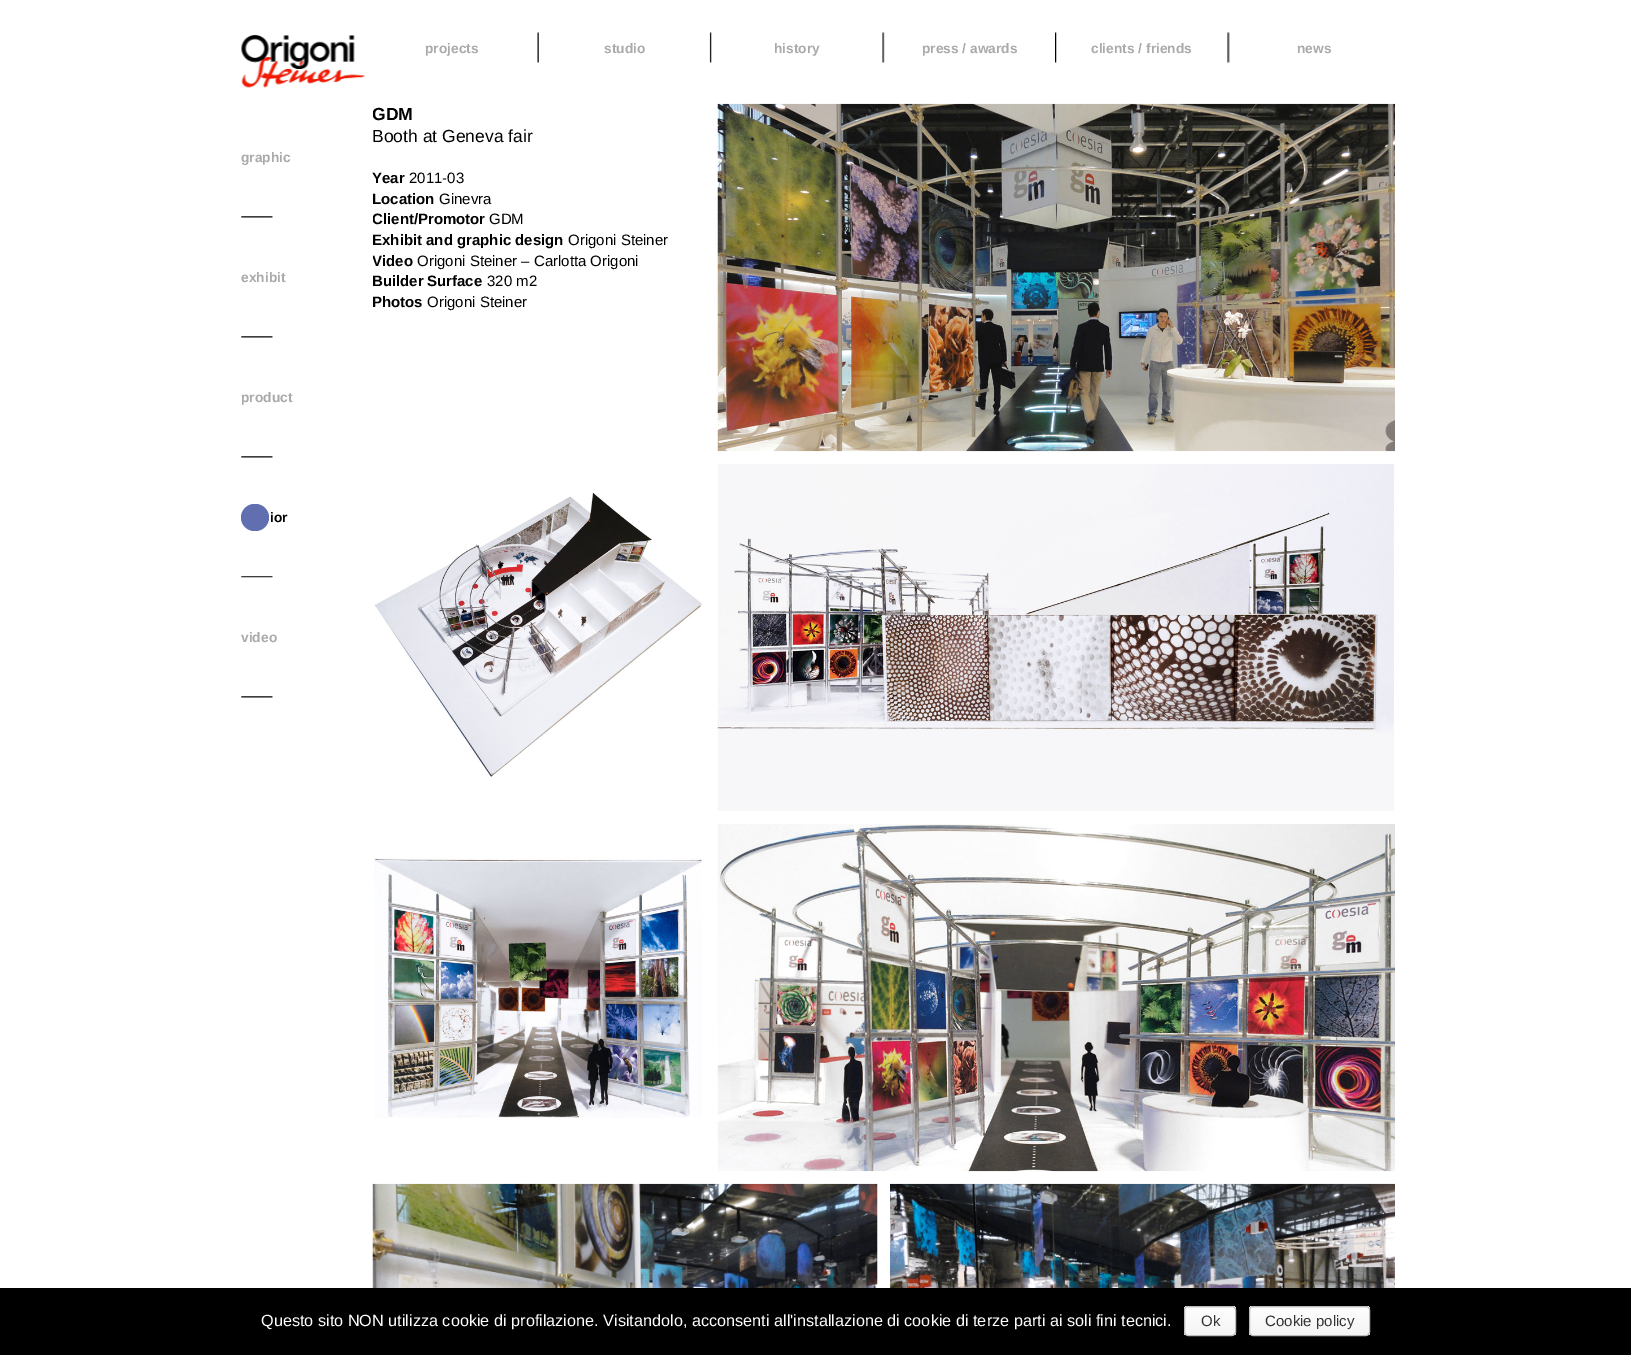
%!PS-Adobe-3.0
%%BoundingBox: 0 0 1631 1355
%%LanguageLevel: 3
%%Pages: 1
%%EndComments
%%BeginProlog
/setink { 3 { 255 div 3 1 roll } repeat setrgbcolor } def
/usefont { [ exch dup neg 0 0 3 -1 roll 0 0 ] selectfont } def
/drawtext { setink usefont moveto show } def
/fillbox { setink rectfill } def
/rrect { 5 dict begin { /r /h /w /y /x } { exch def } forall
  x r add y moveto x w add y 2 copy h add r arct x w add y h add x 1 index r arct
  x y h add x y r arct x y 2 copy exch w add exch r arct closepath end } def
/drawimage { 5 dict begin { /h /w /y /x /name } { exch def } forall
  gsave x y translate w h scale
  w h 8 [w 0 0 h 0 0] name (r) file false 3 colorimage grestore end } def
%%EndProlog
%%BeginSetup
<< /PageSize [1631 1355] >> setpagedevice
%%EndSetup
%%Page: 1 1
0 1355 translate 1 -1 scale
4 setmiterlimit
0 0 1631 1355 255 255 255 fillbox
(assets/img1.rgb) 241 34 124 54 drawimage
(assets/img2.rgb) 537 32 2 31 drawimage
(projects) 425 53 /LiberationSans-Bold 13.75 170 170 170 drawtext
(assets/img3.rgb) 709 32 3 31 drawimage
(studio) 604 53 /LiberationSans-Bold 13.75 170 170 170 drawtext
(assets/img4.rgb) 882 32 3 31 drawimage
(history) 774 53 /LiberationSans-Bold 13.75 170 170 170 drawtext
(assets/img5.rgb) 1055 32 2 31 drawimage
(press / awards) 922 53 /LiberationSans-Bold 13.75 170 170 170 drawtext
(assets/img6.rgb) 1227 32 3 31 drawimage
(clients / friends) 1091 53 /LiberationSans-Bold 13.75 170 170 170 drawtext
(news) 1297 53 /LiberationSans-Bold 13.75 170 170 170 drawtext
(assets/img7.rgb) 241 216 32 2 drawimage
(graphic) 241 162 /LiberationSans-Bold 13.75 170 170 170 drawtext
(assets/img7.rgb) 241 336 32 2 drawimage
(exhibit) 241 282 /LiberationSans-Bold 13.75 170 170 170 drawtext
(assets/img7.rgb) 241 456 32 2 drawimage
(product) 241 402 /LiberationSans-Bold 13.75 170 170 170 drawtext
(assets/img8.rgb) 241 576 32 2 drawimage
97 110 175 setink
241 504 28 27 13.5 rrect fill
(ior) 270 522 /LiberationSans-Bold 13.75 0 0 0 drawtext
(assets/img7.rgb) 241 696 32 2 drawimage
(video) 241 642 /LiberationSans-Bold 13.75 170 170 170 drawtext
gsave
373 104 332 347 rectclip
(GDM) 372 120 /LiberationSans-Bold 17.5 0 0 0 drawtext
grestore
(Booth at Geneva fair) 372 142 /LiberationSans-Regular 17.5 0 0 0 drawtext
(Year) 372 183 /LiberationSans-Bold 15 0 0 0 drawtext
(2011-03) 409 183 /LiberationSans-Regular 15 0 0 0 drawtext
gsave
373 104 332 347 rectclip
(Location) 372 204 /LiberationSans-Bold 15 0 0 0 drawtext
grestore
(Ginevra) 439 204 /LiberationSans-Regular 15 0 0 0 drawtext
gsave
373 104 332 347 rectclip
(Client/Promotor) 372 224 /LiberationSans-Bold 15 0 0 0 drawtext
grestore
(GDM) 489 224 /LiberationSans-Regular 15 0 0 0 drawtext
gsave
373 104 332 347 rectclip
(Exhibit and graphic design) 372 245 /LiberationSans-Bold 15 0 0 0 drawtext
grestore
(Origoni Steiner) 568 245 /LiberationSans-Regular 15 0 0 0 drawtext
gsave
373 104 332 347 rectclip
(Video) 372 266 /LiberationSans-Bold 15 0 0 0 drawtext
grestore
(Origoni Steiner – Carlotta Origoni) 417 266 /LiberationSans-Regular 15 0 0 0 drawtext
gsave
373 104 332 347 rectclip
(Builder) 372 286 /LiberationSans-Bold 15 0 0 0 drawtext
grestore
(Surface) 427 286 /LiberationSans-Bold 15 0 0 0 drawtext
(320 m2) 487 286 /LiberationSans-Regular 15 0 0 0 drawtext
gsave
373 104 332 347 rectclip
(Photos) 372 307 /LiberationSans-Bold 15 0 0 0 drawtext
grestore
(Origoni Steiner) 427 307 /LiberationSans-Regular 15 0 0 0 drawtext
(assets/img9.rgb) 717 103 678 349 drawimage
(assets/img10.rgb) 375 492 327 285 drawimage
(assets/img11.rgb) 717 464 677 347 drawimage
(assets/img12.rgb) 374 858 328 260 drawimage
(assets/img13.rgb) 717 824 678 348 drawimage
(assets/img14.rgb) 372 1183 506 105 drawimage
(assets/img15.rgb) 890 1183 505 105 drawimage
0 1288 1631 67 0 0 0 fillbox
(Questo sito NON utilizza cookie di profilazione. Visitandolo, acconsenti all'installazione di cookie di terze parti ai soli fini tecnici.) 261 1326 /LiberationSans-Regular 16.25 255 255 255 drawtext
gsave
1184 1306 52 30 4 rrect clip newpath
gsave 1184 1306 moveto 1236 1306 lineto 1236 1308 lineto 1184 1308 lineto closepath clip newpath
<< /ShadingType 2 /ColorSpace /DeviceRGB /Coords [1210 1280 1210 1308] /Extend [true true] /Function << /FunctionType 2 /Domain [0 1] /C0 [0.996 0.996 0.996] /C1 [0.957 0.957 0.957] /N 1 >> >> shfill grestore
gsave 1184 1308 moveto 1236 1308 lineto 1236 1335 lineto 1184 1335 lineto closepath clip newpath
<< /ShadingType 2 /ColorSpace /DeviceRGB /Coords [1210 1308 1210 1335] /Extend [true true] /Function << /FunctionType 2 /Domain [0 1] /C0 [0.996 0.996 0.996] /C1 [0.957 0.957 0.957] /N 1 >> >> shfill grestore
grestore
187 187 187 setink
1184.5 1306.5 51 29 3.5 rrect stroke
(Ok) 1201 1326 /LiberationSans-Regular 15 51 51 51 drawtext
gsave
1249 1306 121 30 4 rrect clip newpath
gsave 1249 1306 moveto 1370 1306 lineto 1370 1308 lineto 1249 1308 lineto closepath clip newpath
<< /ShadingType 2 /ColorSpace /DeviceRGB /Coords [1309 1280 1309 1308] /Extend [true true] /Function << /FunctionType 2 /Domain [0 1] /C0 [0.996 0.996 0.996] /C1 [0.957 0.957 0.957] /N 1 >> >> shfill grestore
gsave 1249 1308 moveto 1370 1308 lineto 1370 1335 lineto 1249 1335 lineto closepath clip newpath
<< /ShadingType 2 /ColorSpace /DeviceRGB /Coords [1309 1308 1309 1335] /Extend [true true] /Function << /FunctionType 2 /Domain [0 1] /C0 [0.996 0.996 0.996] /C1 [0.957 0.957 0.957] /N 1 >> >> shfill grestore
grestore
187 187 187 setink
1249.5 1306.5 120 29 3.5 rrect stroke
(Cookie policy) 1265 1326 /LiberationSans-Regular 15 51 51 51 drawtext
showpage
%%EOF
